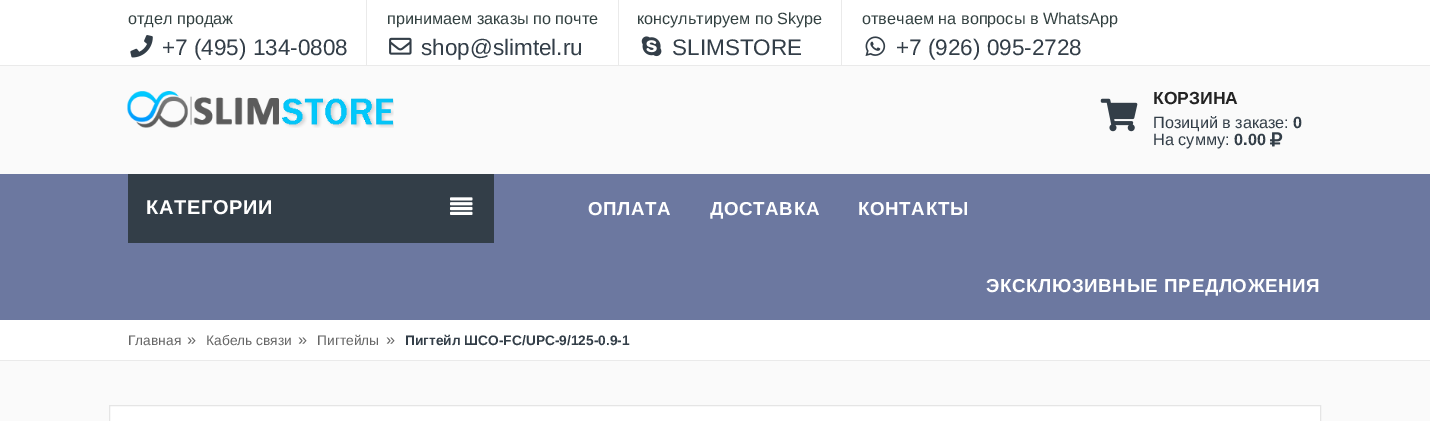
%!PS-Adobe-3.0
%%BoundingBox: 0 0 1430 421
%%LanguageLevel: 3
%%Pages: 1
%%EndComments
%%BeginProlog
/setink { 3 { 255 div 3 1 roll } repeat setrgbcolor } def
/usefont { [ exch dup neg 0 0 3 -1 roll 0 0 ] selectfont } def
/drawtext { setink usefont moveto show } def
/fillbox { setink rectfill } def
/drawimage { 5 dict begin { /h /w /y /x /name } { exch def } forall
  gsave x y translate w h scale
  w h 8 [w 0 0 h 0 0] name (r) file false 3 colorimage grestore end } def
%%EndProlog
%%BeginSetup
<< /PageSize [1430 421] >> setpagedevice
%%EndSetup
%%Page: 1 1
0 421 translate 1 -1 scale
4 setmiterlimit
0 0 1430 421 250 250 250 fillbox
0 0 1430 65 255 255 255 fillbox
0 65 1430 1 234 234 234 fillbox
366 0 1 65 234 234 234 fillbox
(отдел продаж) 128 24 /Arimo-Regular 16.25 51 65 65 drawtext
(assets/img1.rgb) 130 35 23 23 drawimage
(+7 \(495\) 134-0808) 162 55 /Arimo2-Regular 22.5 51 62 72 drawtext
618 0 1 65 234 234 234 fillbox
(принимаем заказы по почте) 387 24 /Arimo-Regular 16.25 51 65 65 drawtext
(assets/img2.rgb) 389 37 23 18 drawimage
(shop@slimtel.ru) 421 55 /Arimo2-Regular 22.5 51 62 72 drawtext
841 0 1 65 234 234 234 fillbox
(консультируем по Skype) 637 24 /Arimo-Regular 16.25 51 65 65 drawtext
(assets/img3.rgb) 641 36 21 21 drawimage
(SLIMSTORE) 672 55 /Arimo2-Regular 22.5 51 62 72 drawtext
(отвечаем на вопросы в WhatsApp) 862 24 /Arimo-Regular 16.25 51 65 65 drawtext
(assets/img4.rgb) 865 36 21 20 drawimage
(+7 \(926\) 095-2728) 896 55 /Arimo2-Regular 22.5 51 62 72 drawtext
(assets/img5.rgb) 127 91 267 37 drawimage
(assets/img6.rgb) 1100 98 38 34 drawimage
(КОРЗИНА) 1153 104 /Arimo-Bold 17.5 35 35 35 drawtext
(Позиций в заказе:) 1153 128 /Arimo-Regular 16.25 51 62 72 drawtext
(0) 1293 128 /Arimo-Bold 16.25 51 62 72 drawtext
(На сумму:) 1153 145 /Arimo-Regular 16.25 51 62 72 drawtext
(0.00) 1234 145 /Arimo-Bold 16.25 51 62 72 drawtext
(assets/img7.rgb) 1270 132 13 15 drawimage
0 174 1430 146 108 120 160 fillbox
128 174 366 69 51 62 72 fillbox
/Arimo-Bold 20 usefont
255 255 255 setink
146 214 moveto 0.6 0 (КАТЕГОРИИ) ashow
(assets/img8.rgb) 450 197 23 18 drawimage
/Arimo-Bold 18.75 usefont
588 215 moveto 0.6 0 (ОПЛАТА) ashow
710 215 moveto 0.6 0 (ДОСТАВКА) ashow
858 215 moveto 0.6 0 (КОНТАКТЫ) ashow
986 292 moveto 0.6 0 (ЭКСКЛЮЗИВНЫЕ ПРЕДЛОЖЕНИЯ) ashow
0 320 1430 40 255 255 255 fillbox
0 360 1430 1 234 234 234 fillbox
(Главная) 128 345 /Arimo-Regular 13.75 102 102 102 drawtext
(») 187 345 /Arimo2-Regular 16.25 102 102 102 drawtext
(Кабель связи) 206 345 /Arimo-Regular 13.75 102 102 102 drawtext
(») 298 345 /Arimo2-Regular 16.25 102 102 102 drawtext
(Пигтейлы) 317 345 /Arimo-Regular 13.75 102 102 102 drawtext
(») 386 345 /Arimo2-Regular 16.25 102 102 102 drawtext
(Пигтейл ШСО-FC/UPC-9/125-0.9-1) 405 345 /Arimo-Bold 13.75 51 62 72 drawtext
255 255 255 setink
109.5 405.5 moveto 1320.5 405.5 lineto 1320.5 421.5 lineto 109.5 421.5 lineto closepath gsave fill grestore
229 229 229 setink
stroke
showpage
%%EOF
